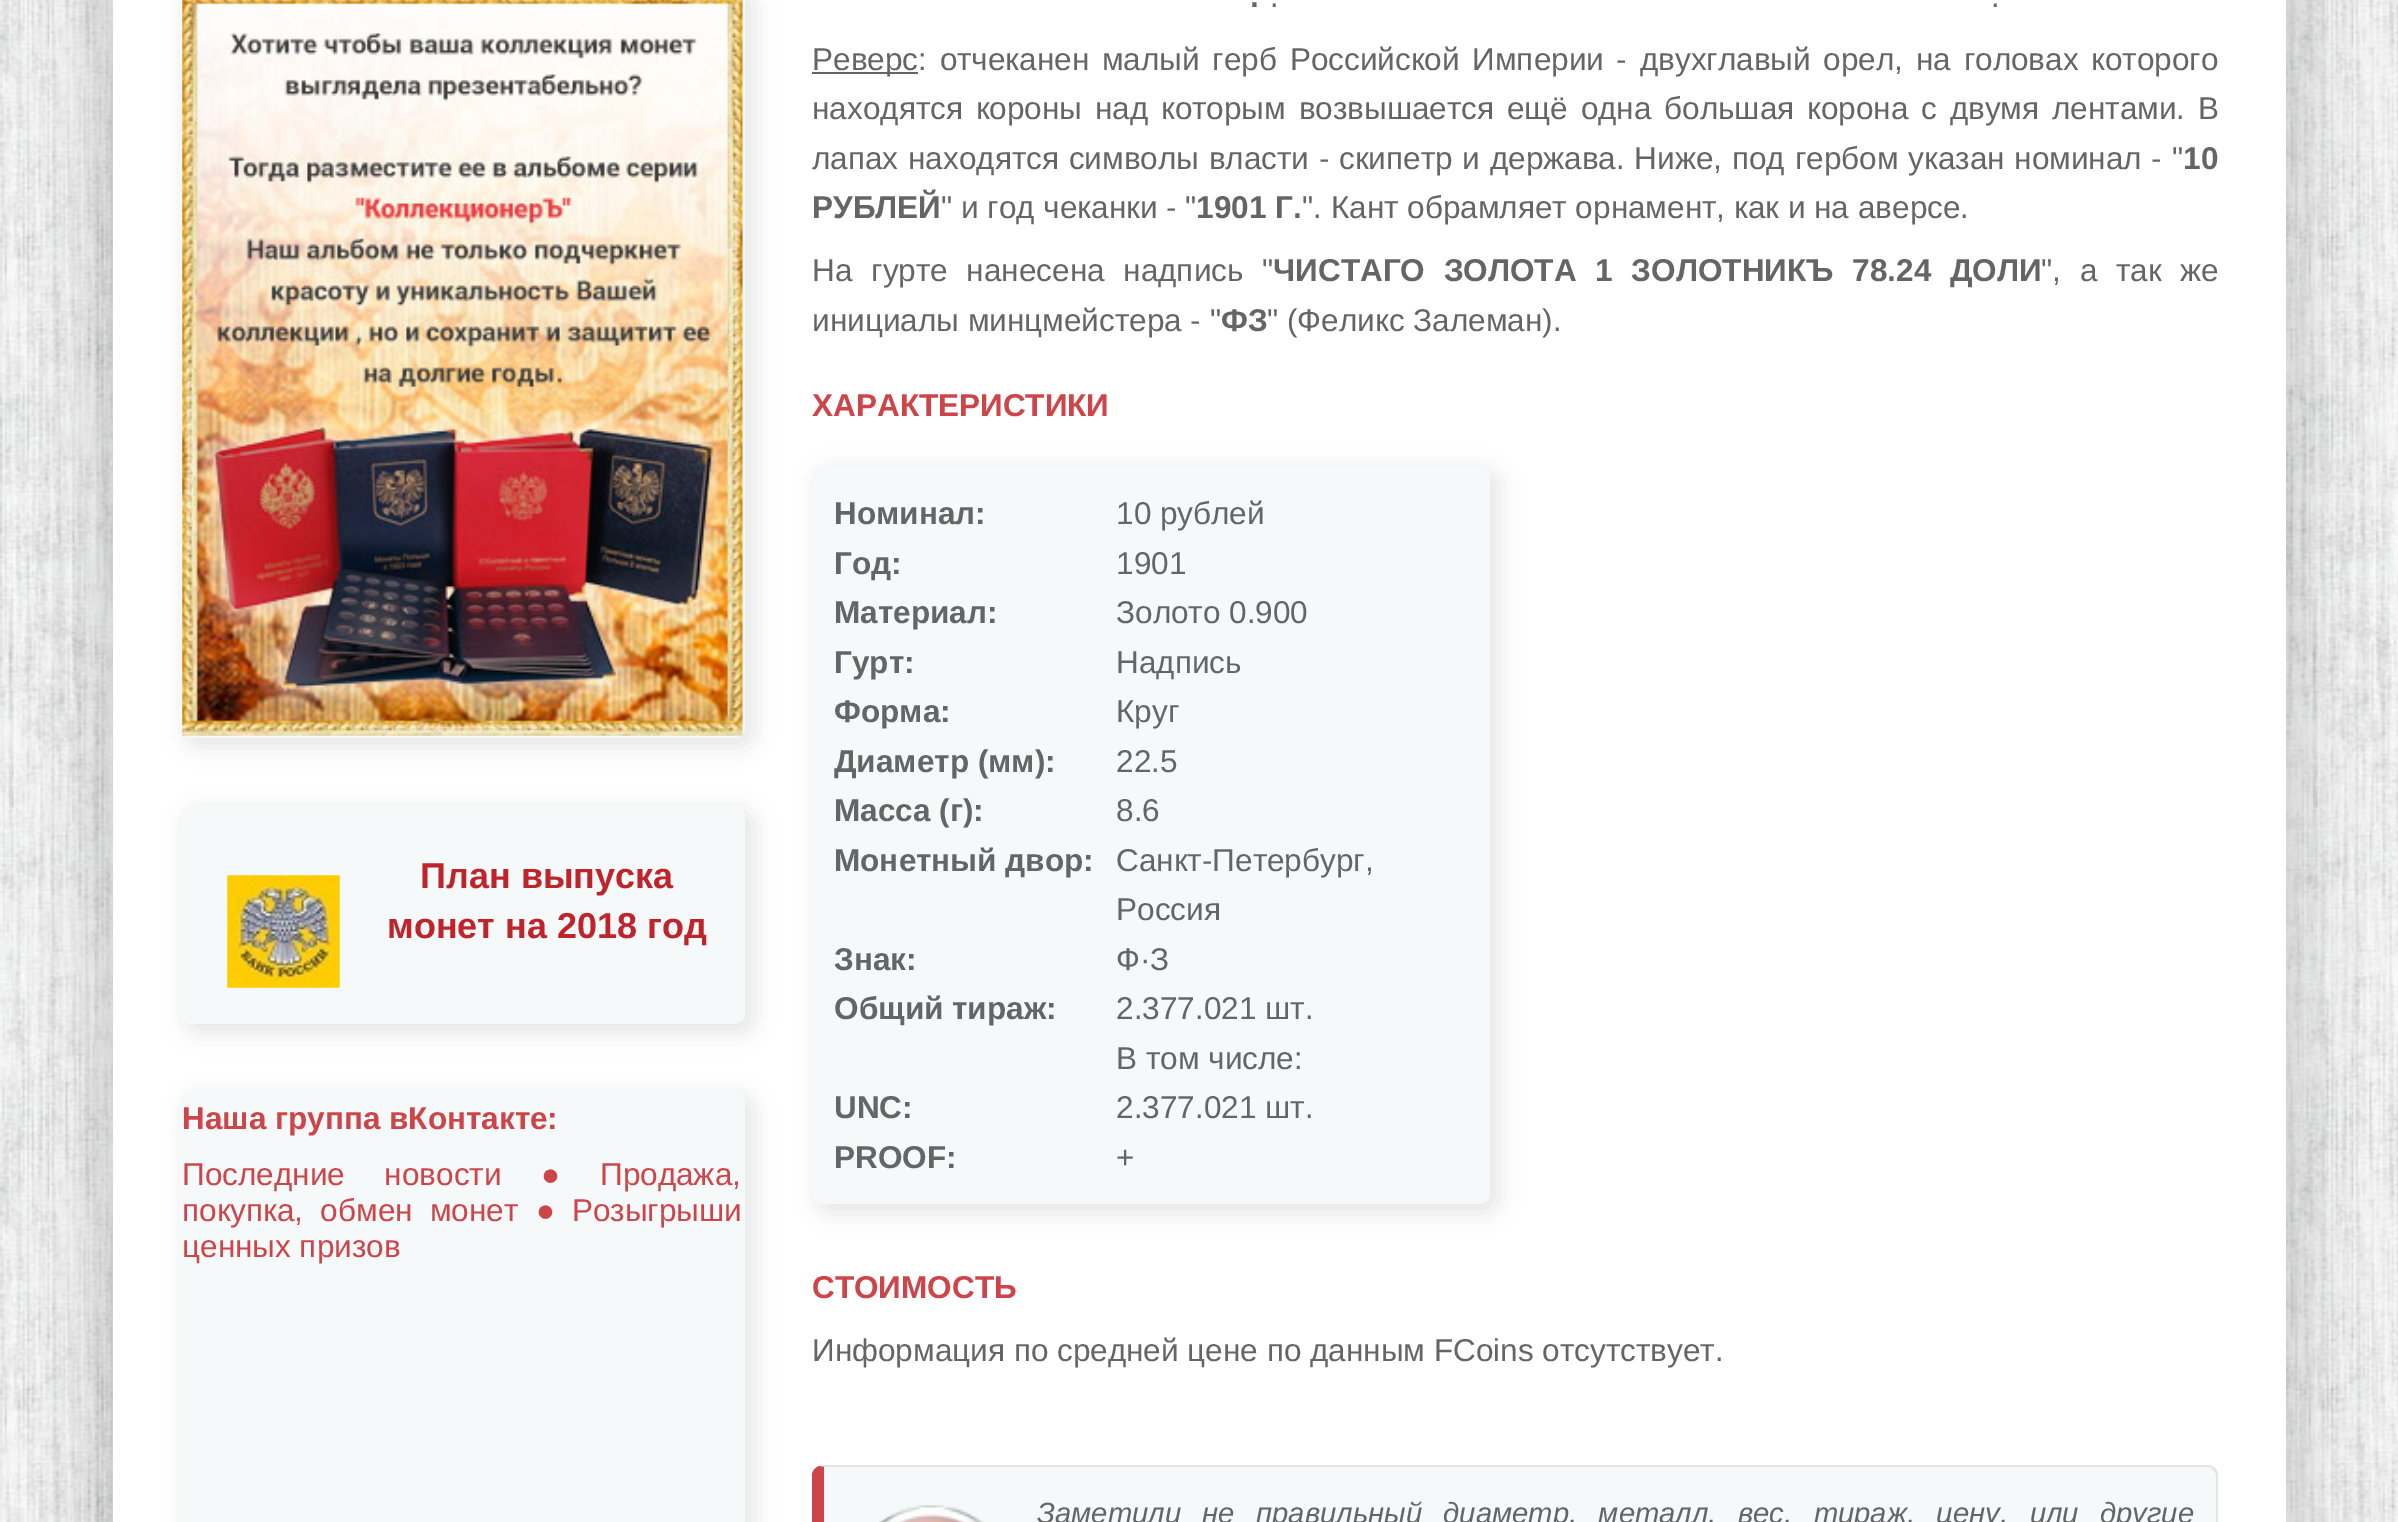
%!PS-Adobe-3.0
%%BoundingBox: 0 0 2398 1522
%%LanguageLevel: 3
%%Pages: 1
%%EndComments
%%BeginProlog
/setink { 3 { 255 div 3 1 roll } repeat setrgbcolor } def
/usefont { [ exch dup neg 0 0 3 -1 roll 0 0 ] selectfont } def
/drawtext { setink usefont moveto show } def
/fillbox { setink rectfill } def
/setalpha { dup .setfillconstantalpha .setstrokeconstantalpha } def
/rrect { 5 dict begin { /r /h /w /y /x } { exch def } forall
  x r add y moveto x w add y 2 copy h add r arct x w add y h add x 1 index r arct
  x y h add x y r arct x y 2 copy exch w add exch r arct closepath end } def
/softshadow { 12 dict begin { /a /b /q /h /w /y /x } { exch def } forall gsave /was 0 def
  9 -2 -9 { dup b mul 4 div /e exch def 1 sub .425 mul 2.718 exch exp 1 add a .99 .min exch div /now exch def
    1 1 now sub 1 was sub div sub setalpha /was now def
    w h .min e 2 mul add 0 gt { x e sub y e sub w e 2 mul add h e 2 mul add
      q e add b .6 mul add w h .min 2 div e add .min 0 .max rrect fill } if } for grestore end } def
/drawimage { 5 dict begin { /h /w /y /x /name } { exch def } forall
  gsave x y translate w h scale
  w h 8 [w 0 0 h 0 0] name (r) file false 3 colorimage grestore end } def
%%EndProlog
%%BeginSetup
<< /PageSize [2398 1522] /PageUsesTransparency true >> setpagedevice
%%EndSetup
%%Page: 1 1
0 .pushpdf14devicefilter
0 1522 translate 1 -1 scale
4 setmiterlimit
0 0 2398 1522 255 255 255 fillbox
(assets/img1.rgb) 0 0 2398 1522 drawimage
0 0 0 setink
113 -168 2173 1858 0 56 0.05 softshadow
90 -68 2219 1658 0 22.5 0.1 softshadow
113 0 2173 1522 255 255 255 fillbox
0 0 0 setink
185 -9 569 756 14 11 0.1 softshadow
245 249 250 setink
180 -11 565 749 11 rrect fill
(assets/img2.rgb) 182 0 561 736 drawimage
0 0 0 setink
185 810 569 223 14 11 0.1 softshadow
245 249 250 setink
180 806 565 218 11 rrect fill
(assets/img3.rgb) 227 875 113 113 drawimage
(План выпуска) 420 888 /LiberationSans-Bold 36 190 36 42 drawtext
(монет на 2018 год) 387 938 /LiberationSans-Bold 36 190 36 42 drawtext
0 0 0 setink
185 1096 569 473 14 11 0.1 softshadow
245 249 250 setink
180 1091 565 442 11 rrect fill
(Наша группа вКонтакте:) 182 1129 /LiberationSans-Bold 31.5 205 68 73 drawtext
/LiberationSans-Regular 31.5 usefont
182 1185 moveto 31 0 32 (Последние новости ● Продажа,) widthshow
182 1221 moveto 8.5 0 32 (покупка, обмен монет ● Розыгрыши) widthshow
(ценных призов) 182 1257 /LiberationSans-Regular 31.5 205 68 73 drawtext
(.) 1250 7 /LiberationSans-Bold 31.5 101 101 101 drawtext
(.) 1270 7 /LiberationSans-Regular 31.5 101 101 101 drawtext
(.) 1991 7 /LiberationSans-Regular 31.5 101 101 101 drawtext
812 72 106 2 101 101 101 fillbox
(Реверс) 812 70 /LiberationSans-Regular 31.5 101 101 101 drawtext
918 70 moveto 4 0 32 (: отчеканен малый герб Российской Империи - двухглавый орел, на головах которого) widthshow
812 119 moveto 4 0 32 (находятся короны над которым возвышается ещё одна большая корона с двумя лентами. В) widthshow
812 169 moveto 1 0 32 (лапах находятся символы власти - скипетр и держава. Ниже, под гербом указан номинал - ") widthshow
(10) 2183 169 /LiberationSans-Bold 31.5 101 101 101 drawtext
(РУБЛЕЙ) 812 218 /LiberationSans-Bold 31.5 101 101 101 drawtext
(" и год чеканки - ") 941 218 /LiberationSans-Regular 31.5 101 101 101 drawtext
(1901 Г.) 1196 218 /LiberationSans-Bold 31.5 101 101 101 drawtext
(". Кант обрамляет орнамент, как и на аверсе.) 1302 218 /LiberationSans-Regular 31.5 101 101 101 drawtext
812 281 moveto 10 0 32 (На гурте нанесена надпись ") widthshow
/LiberationSans-Bold 31.5 usefont
1273 281 moveto 10 0 32 (ЧИСТАГО ЗОЛОТА 1 ЗОЛОТНИКЪ 78.24 ДОЛИ) widthshow
/LiberationSans-Regular 31.5 usefont
2041 281 moveto 10 0 32 (", а так же) widthshow
(инициалы минцмейстера - ") 812 331 /LiberationSans-Regular 31.5 101 101 101 drawtext
(ФЗ) 1221 331 /LiberationSans-Bold 31.5 101 101 101 drawtext
(" \(Феликс Залеман\).) 1267 331 /LiberationSans-Regular 31.5 101 101 101 drawtext
(ХАРАКТЕРИСТИКИ) 812 416 /LiberationSans-Bold 31.5 205 68 73 drawtext
0 0 0 setink
817 470 682 743 14 11 0.1 softshadow
245 249 250 setink
812 466 678 738 11 rrect fill
(Номинал:) 834 524 /LiberationSans-Bold 31.5 101 101 101 drawtext
(10 рублей) 1116 524 /LiberationSans-Regular 31.5 101 101 101 drawtext
(Год:) 834 574 /LiberationSans-Bold 31.5 101 101 101 drawtext
(1901) 1116 574 /LiberationSans-Regular 31.5 101 101 101 drawtext
(Материал:) 834 623 /LiberationSans-Bold 31.5 101 101 101 drawtext
(Золото 0.900) 1116 623 /LiberationSans-Regular 31.5 101 101 101 drawtext
(Гурт:) 834 673 /LiberationSans-Bold 31.5 101 101 101 drawtext
(Надпись) 1116 673 /LiberationSans-Regular 31.5 101 101 101 drawtext
(Форма:) 834 722 /LiberationSans-Bold 31.5 101 101 101 drawtext
(Круг) 1116 722 /LiberationSans-Regular 31.5 101 101 101 drawtext
(Диаметр \(мм\):) 834 772 /LiberationSans-Bold 31.5 101 101 101 drawtext
(22.5) 1116 772 /LiberationSans-Regular 31.5 101 101 101 drawtext
(Масса \(г\):) 834 821 /LiberationSans-Bold 31.5 101 101 101 drawtext
(8.6) 1116 821 /LiberationSans-Regular 31.5 101 101 101 drawtext
(Монетный двор:) 834 871 /LiberationSans-Bold 31.5 101 101 101 drawtext
(Санкт-Петербург,) 1116 871 /LiberationSans-Regular 31.5 101 101 101 drawtext
(Россия) 1116 920 /LiberationSans-Regular 31.5 101 101 101 drawtext
(Знак:) 834 970 /LiberationSans-Bold 31.5 101 101 101 drawtext
(Ф·З) 1116 970 /LiberationSans-Regular 31.5 101 101 101 drawtext
(Общий тираж:) 834 1019 /LiberationSans-Bold 31.5 101 101 101 drawtext
(2.377.021 шт.) 1116 1019 /LiberationSans-Regular 31.5 101 101 101 drawtext
(В том числе:) 1116 1069 /LiberationSans-Regular 31.5 101 101 101 drawtext
(UNC:) 834 1118 /LiberationSans-Bold 31.5 101 101 101 drawtext
(2.377.021 шт.) 1116 1118 /LiberationSans-Regular 31.5 101 101 101 drawtext
(PROOF:) 834 1168 /LiberationSans-Bold 31.5 101 101 101 drawtext
(+) 1116 1168 /LiberationSans-Regular 31.5 101 101 101 drawtext
(СТОИМОСТЬ) 812 1298 /LiberationSans-Bold 31.5 205 68 73 drawtext
(Информация по средней цене по данным FCoins отсутствует.) 812 1361 /LiberationSans-Regular 31.5 101 101 101 drawtext
245 249 250 setink
824 1467 moveto 2207 1467 lineto 2212 1467 2216 1471 2216 1476 curveto 2216 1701 lineto 2216 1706 2212 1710 2207 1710 curveto 824 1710 lineto closepath fill
(assets/img4.rgb) 879 1505 105 17 drawimage
229 229 229 setink
824 1465 moveto 819 1466 lineto 824 1467 lineto 2207 1467 lineto 2210 1467 2212 1468 2213 1470 curveto 2215 1468 lineto 2213 1466 2210 1465 2207 1465 curveto closepath fill
2215 1468 moveto 2217 1470 2218 1473 2218 1476 curveto 2218 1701 lineto 2218 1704 2217 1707 2215 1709 curveto 2213 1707 lineto 2215 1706 2216 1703 2216 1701 curveto 2216 1476 lineto 2216 1474 2215 1471 2213 1470 curveto closepath fill
205 68 73 setink
812 1474 moveto 813 1470 815 1468 819 1466 curveto 824 1467 lineto 824 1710 lineto 819 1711 lineto 815 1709 813 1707 812 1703 curveto closepath fill
/LiberationSans-Italic 29.25 usefont
101 101 101 setink
1037 1523 moveto 13.25 0 32 (Заметили не правильный диаметр, металл, вес, тираж, цену, или другие) widthshow
.poppdf14devicefilter showpage
%%EOF
